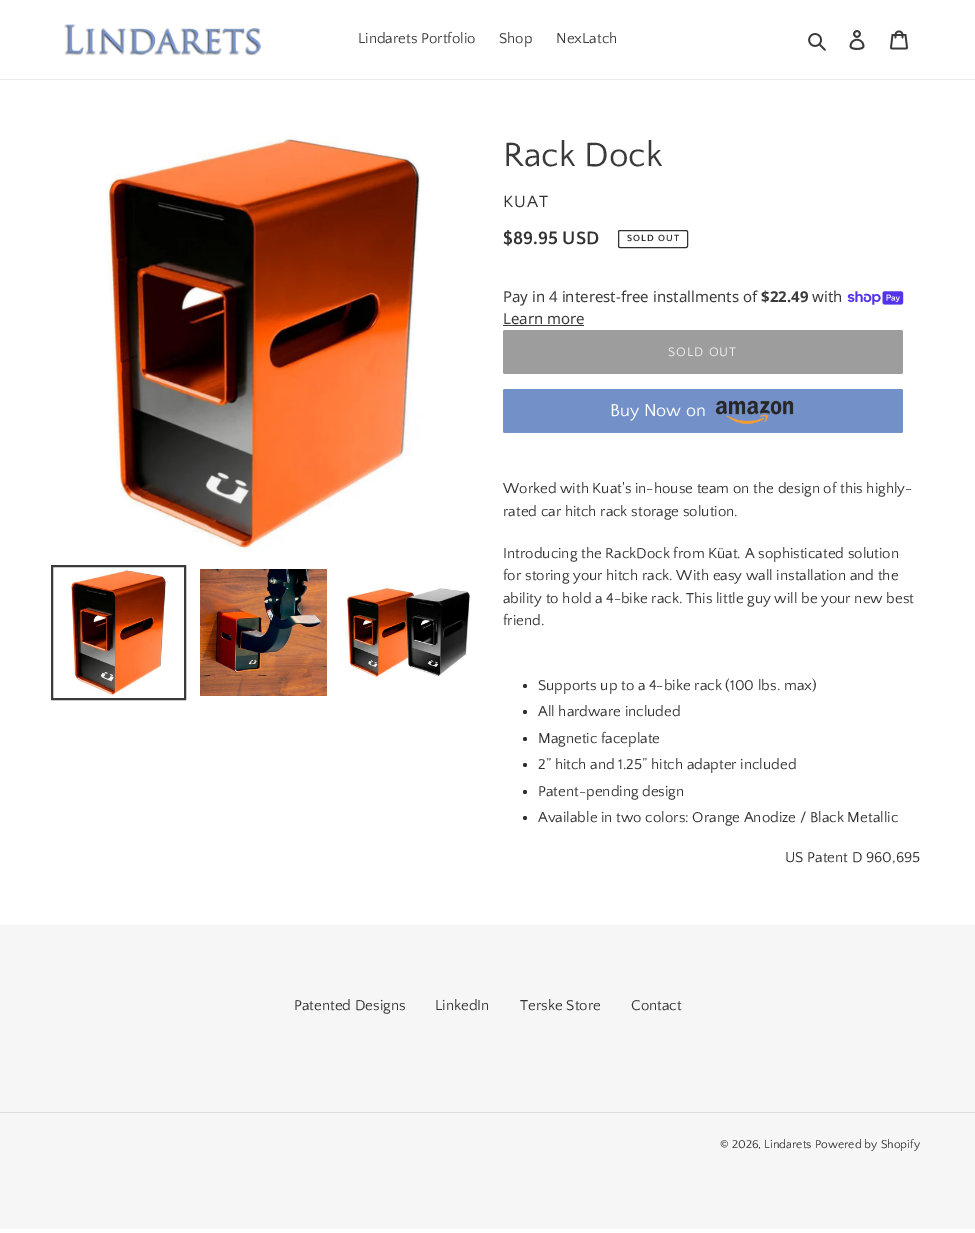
%!PS-Adobe-3.0
%%BoundingBox: 0 0 975 1233
%%LanguageLevel: 3
%%Pages: 1
%%EndComments
%%BeginProlog
/setink { 3 { 255 div 3 1 roll } repeat setrgbcolor } def
/usefont { [ exch dup neg 0 0 3 -1 roll 0 0 ] selectfont } def
/drawtext { setink usefont moveto show } def
/fillbox { setink rectfill } def
/disc { newpath 0 360 arc closepath } def
/rrect { 5 dict begin { /r /h /w /y /x } { exch def } forall
  x r add y moveto x w add y 2 copy h add r arct x w add y h add x 1 index r arct
  x y h add x y r arct x y 2 copy exch w add exch r arct closepath end } def
/drawimage { 5 dict begin { /h /w /y /x /name } { exch def } forall
  gsave x y translate w h scale
  w h 8 [w 0 0 h 0 0] name (r) file false 3 colorimage grestore end } def
%%EndProlog
%%BeginSetup
<< /PageSize [975 1233] >> setpagedevice
%%EndSetup
%%Page: 1 1
0 1233 translate 1 -1 scale
4 setmiterlimit
0 0 975 1233 255 255 255 fillbox
0 79 975 1 235 235 235 fillbox
(assets/img1.rgb) 64 24 198 32 drawimage
(Lindarets Portfolio) 358 43 /QuattrocentoSans-Regular 15 58 58 58 drawtext
(Shop) 499 43 /QuattrocentoSans-Regular 15 58 58 58 drawtext
(NexLatch) 556 43 /QuattrocentoSans-Regular 15 58 58 58 drawtext
(assets/img2.rgb) 808 33 18 18 drawimage
(assets/img3.rgb) 849 30 16 20 drawimage
(assets/img4.rgb) 890 30 18 20 drawimage
(assets/img5.rgb) 105 135 316 417 drawimage
2 setlinewidth
52 566 133 133 rectstroke
(assets/img6.rgb) 69 569 97 127 drawimage
(assets/img7.rgb) 200 569 127 127 drawimage
(assets/img8.rgb) 345 587 125 93 drawimage
(Rack Dock) 503 166 /QuattrocentoSans-Regular 35 58 58 58 drawtext
/QuattrocentoSans-Regular 17 usefont
51 50 50 setink
503 207 moveto 1 0 (KUAT) ashow
($89.95 USD) 503 244 /QuattrocentoSans-Bold 18.75 51 50 50 drawtext
1 setlinewidth
618.5 230.5 69 17 1.5 rrect stroke
/QuattrocentoSans-Bold 9.5 usefont
627 241 moveto 1 0 (SOLD OUT) ashow
(Pay in 4 interest-free installments of) 503 302 /NotoSans-Regular 15 58 58 58 drawtext
($22.49) 761 302 /NotoSans-Bold 15 58 58 58 drawtext
(with) 812 302 /NotoSans-Regular 15 58 58 58 drawtext
(assets/img9.rgb) 847 291 57 14 drawimage
(Learn more) 503 324 /NotoSans-Regular 15 58 58 58 drawtext
503 325 81 1 58 58 58 fillbox
157 157 157 setink
503 330 400 44 2 rrect fill
/QuattrocentoSans-Regular 13 usefont
240 240 240 setink
668 356 moveto 1 0 (SOLD OUT) ashow
115 144 200 setink
503 389 400 44 2 rrect fill
(Buy Now on) 610 416 /QuattrocentoSans-Regular 18 255 255 255 drawtext
(assets/img10.rgb) 715 400 79 25 drawimage
(Worked with Kuat's in-house team on the design of this highly-) 503 493 /QuattrocentoSans-Regular 15 51 50 50 drawtext
(rated car hitch rack storage solution.) 503 516 /QuattrocentoSans-Regular 15 51 50 50 drawtext
(Introducing the RackDock from Küat. A sophisticated solution) 503 558 /QuattrocentoSans-Regular 15 51 50 50 drawtext
(for storing your hitch rack. With easy wall installation and the) 503 580 /QuattrocentoSans-Regular 15 51 50 50 drawtext
(ability to hold a 4-bike rack. This little guy will be your new best) 503 603 /QuattrocentoSans-Regular 15 51 50 50 drawtext
(friend.) 503 625 /QuattrocentoSans-Regular 15 51 50 50 drawtext
525 686 2 disc fill
(Supports up to a 4-bike rack \(100 lbs. max\)) 538 690 /QuattrocentoSans-Regular 15 51 50 50 drawtext
525 712 2 disc fill
(All hardware included) 538 716 /QuattrocentoSans-Regular 15 51 50 50 drawtext
525 739 2 disc fill
(Magnetic faceplate) 538 743 /QuattrocentoSans-Regular 15 51 50 50 drawtext
525 765 2 disc fill
(2” hitch and 1.25” hitch adapter included) 538 769 /QuattrocentoSans-Regular 15 51 50 50 drawtext
525 792 2 disc fill
(Patent-pending design) 538 796 /QuattrocentoSans-Regular 15 51 50 50 drawtext
525 818 2 disc fill
(Available in two colors: Orange Anodize / Black Metallic) 538 822 /QuattrocentoSans-Regular 15 51 50 50 drawtext
(US Patent D 960,695) 785 862 /QuattrocentoSans-Regular 15 51 50 50 drawtext
0 925 975 304 246 246 246 fillbox
(Patented Designs) 294 1010 /QuattrocentoSans-Regular 15 51 50 50 drawtext
(LinkedIn) 435 1010 /QuattrocentoSans-Regular 15 51 50 50 drawtext
(Terske Store) 520 1010 /QuattrocentoSans-Regular 15 51 50 50 drawtext
(Contact) 631 1010 /QuattrocentoSans-Regular 15 51 50 50 drawtext
0 1112 975 1 221 221 221 fillbox
(© 2026, Lindarets) 720 1148 /QuattrocentoSans-Regular 12 51 50 50 drawtext
(Powered by Shopify) 815 1148 /QuattrocentoSans-Regular 12 51 50 50 drawtext
showpage
%%EOF
